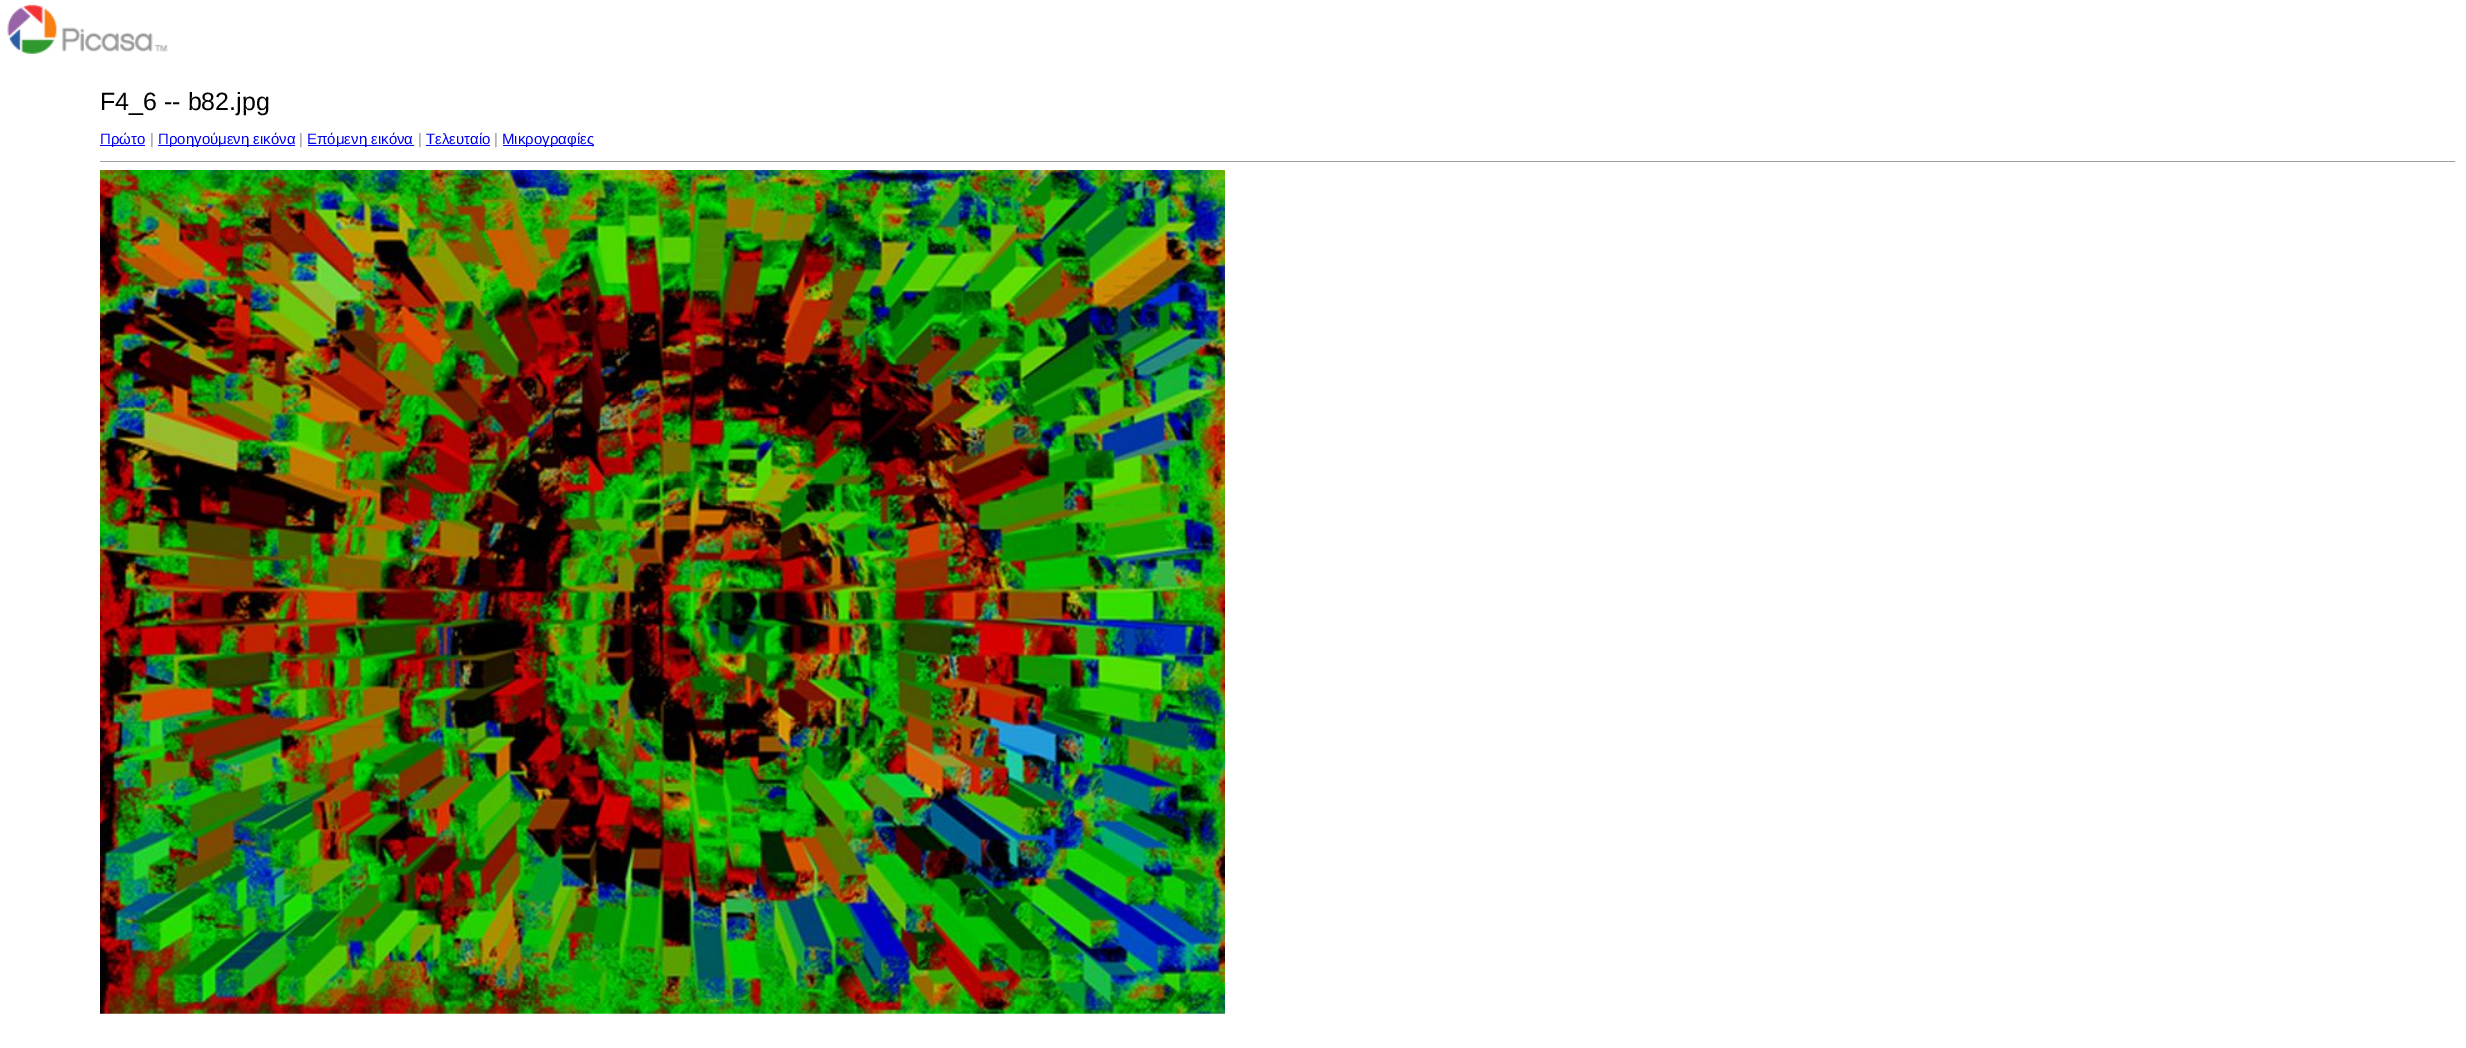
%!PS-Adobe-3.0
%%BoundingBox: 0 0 2466 1048
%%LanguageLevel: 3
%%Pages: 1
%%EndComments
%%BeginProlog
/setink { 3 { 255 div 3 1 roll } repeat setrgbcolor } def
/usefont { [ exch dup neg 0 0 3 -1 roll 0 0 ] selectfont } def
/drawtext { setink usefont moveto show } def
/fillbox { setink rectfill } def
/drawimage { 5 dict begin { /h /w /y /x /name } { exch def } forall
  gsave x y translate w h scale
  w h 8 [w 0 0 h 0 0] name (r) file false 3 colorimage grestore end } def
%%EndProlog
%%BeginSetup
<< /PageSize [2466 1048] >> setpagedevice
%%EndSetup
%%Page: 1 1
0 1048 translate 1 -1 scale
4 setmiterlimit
0 0 2466 1048 255 255 255 fillbox
(assets/img1.rgb) 7 4 161 50 drawimage
(F4_6 -- b82.jpg) 100 110 /LiberationSans-Regular 25 0 0 0 drawtext
100 145 45 1 0 0 238 fillbox
(Πρώτο) 100 144 /LiberationSans-Regular 15 0 0 238 drawtext
(|) 150 144 /LiberationSans-Regular 15 151 151 151 drawtext
158 145 137 1 0 0 238 fillbox
(Προηγούμενη εικόνα) 158 144 /LiberationSans-Regular 15 0 0 238 drawtext
(|) 299 144 /LiberationSans-Regular 15 151 151 151 drawtext
308 145 106 1 0 0 238 fillbox
(Επόμενη εικόνα) 307 144 /LiberationSans-Regular 15 0 0 238 drawtext
(|) 418 144 /LiberationSans-Regular 15 151 151 151 drawtext
(Τελευταίο) 426 144 /LiberationSans-Regular 15 0 0 238 drawtext
426 145 64 1 0 0 238 fillbox
(|) 494 144 /LiberationSans-Regular 15 151 151 151 drawtext
503 145 91 1 0 0 238 fillbox
(Μικρογραφίες) 502 144 /LiberationSans-Regular 15 0 0 238 drawtext
100 161 2356 1 159 159 159 fillbox
2455 161 1 1 238 238 238 fillbox
(assets/img2.rgb) 100 170 1125 844 drawimage
showpage
%%EOF
